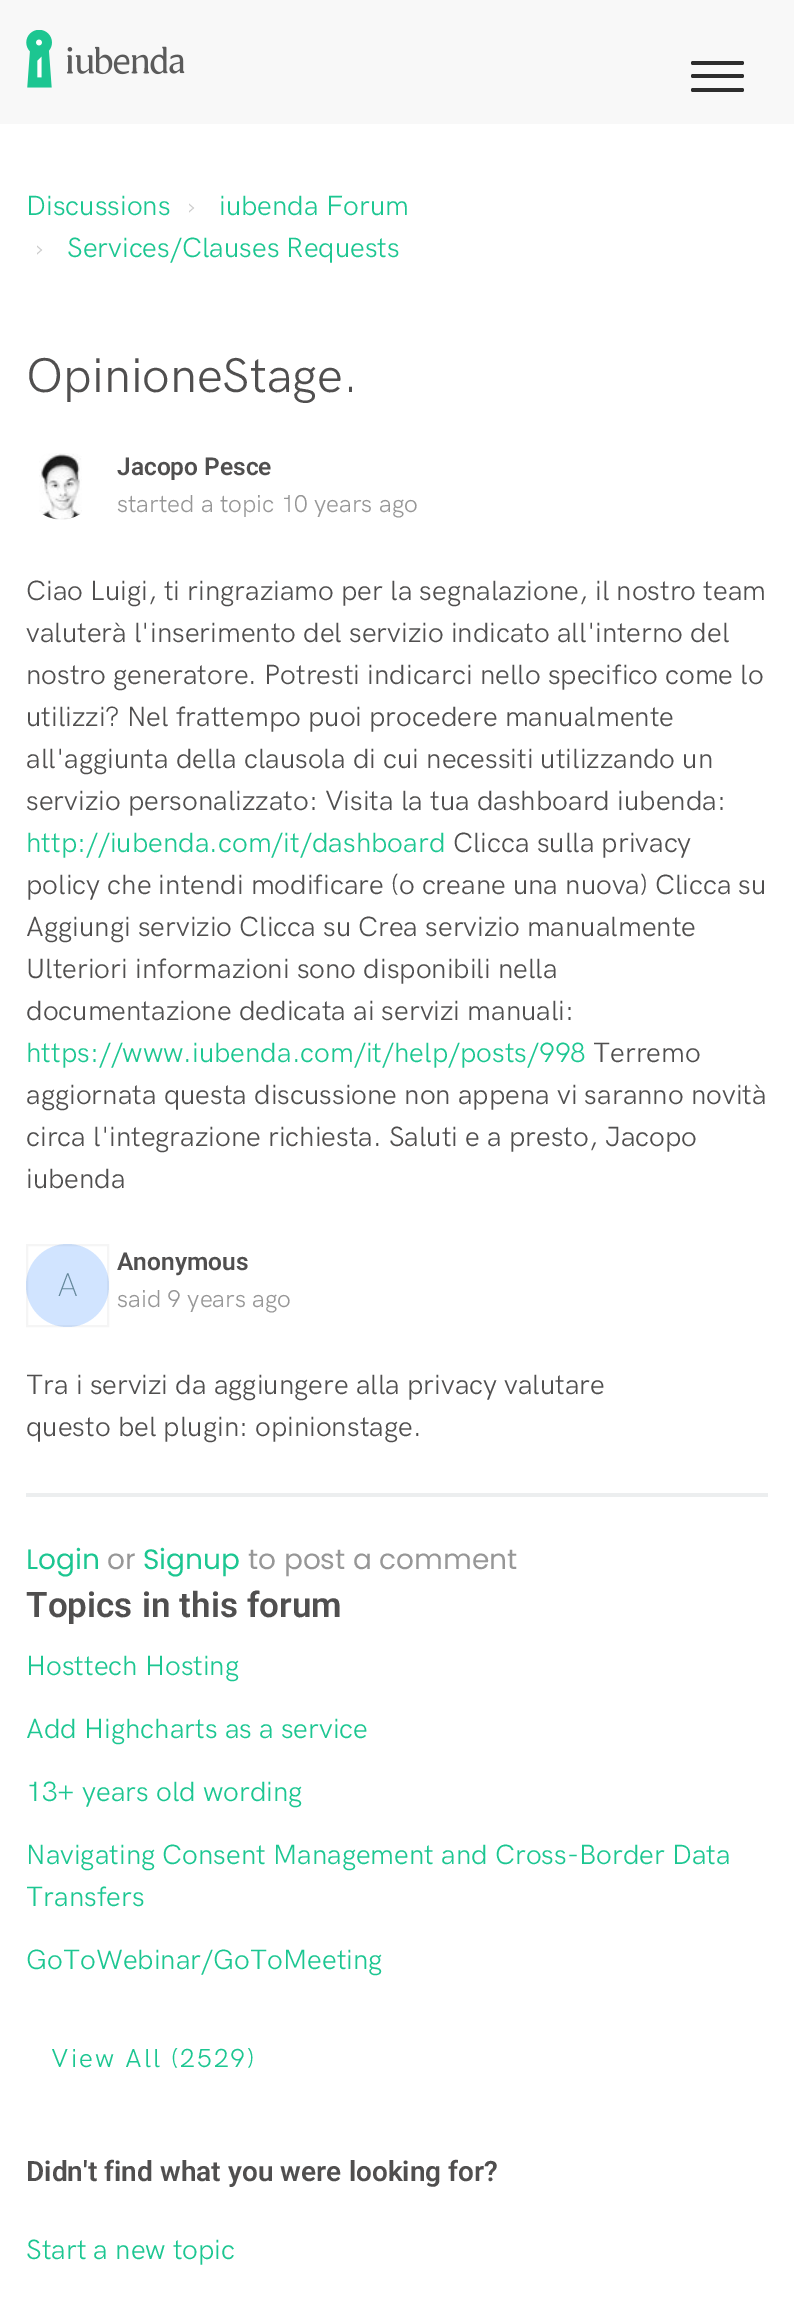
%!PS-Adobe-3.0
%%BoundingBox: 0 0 794 2324
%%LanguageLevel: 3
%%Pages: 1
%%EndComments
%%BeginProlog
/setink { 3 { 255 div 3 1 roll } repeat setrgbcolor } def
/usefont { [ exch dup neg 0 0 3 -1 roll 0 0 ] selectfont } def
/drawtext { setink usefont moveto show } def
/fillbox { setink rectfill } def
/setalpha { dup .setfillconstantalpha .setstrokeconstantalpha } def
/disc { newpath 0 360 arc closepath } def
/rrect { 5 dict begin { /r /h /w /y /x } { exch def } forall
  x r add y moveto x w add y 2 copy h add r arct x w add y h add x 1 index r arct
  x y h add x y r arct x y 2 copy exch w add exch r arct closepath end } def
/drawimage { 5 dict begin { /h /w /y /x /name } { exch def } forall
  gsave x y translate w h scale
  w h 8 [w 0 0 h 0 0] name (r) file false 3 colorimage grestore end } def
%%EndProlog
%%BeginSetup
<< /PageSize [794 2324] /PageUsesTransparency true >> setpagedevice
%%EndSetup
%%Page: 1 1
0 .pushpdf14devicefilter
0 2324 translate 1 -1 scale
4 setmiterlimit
0 0 794 2324 255 255 255 fillbox
0 0 794 124 248 248 248 fillbox
(assets/img1.rgb) 26 30 159 58 drawimage
45 45 45 setink
691 74 53 4 2 rrect fill
691 61 53 4 2 rrect fill
691 88 53 4 2 rrect fill
(Discussions) 26 215 /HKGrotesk-Regular 28 28 198 145 drawtext
(›) 187 215 /HKGrotesk-Regular 28 204 204 204 drawtext
(iubenda Forum) 219 215 /HKGrotesk-Regular 28 28 198 145 drawtext
(›) 35 257 /HKGrotesk-Regular 28 204 204 204 drawtext
(Services/Clauses Requests) 67 257 /HKGrotesk-Regular 28 28 198 145 drawtext
(OpinioneStage.) 26 392 /HKGrotesk-Regular 49 80 79 79 drawtext
(assets/img2.rgb) 39 453 43 67 drawimage
(Jacopo Pesce) 117 475 /Roboto-SemiBold 24.5 80 79 79 drawtext
(started a topic 10 years ago) 117 512 /HKGrotesk-Regular 24.5 151 151 151 drawtext
(Ciao Luigi, ti ringraziamo per la segnalazione, il nostro team) 26 600 /HKGrotesk-Regular 28 80 79 79 drawtext
(valuterà l'inserimento del servizio indicato all'interno del) 26 642 /HKGrotesk-Regular 28 80 79 79 drawtext
(nostro generatore. Potresti indicarci nello specifico come lo) 26 684 /HKGrotesk-Regular 28 80 79 79 drawtext
(utilizzi? Nel frattempo puoi procedere manualmente) 26 726 /HKGrotesk-Regular 28 80 79 79 drawtext
(all'aggiunta della clausola di cui necessiti utilizzando un) 26 768 /HKGrotesk-Regular 28 80 79 79 drawtext
(servizio personalizzato: Visita la tua dashboard iubenda:) 26 810 /HKGrotesk-Regular 28 80 79 79 drawtext
(http://iubenda.com/it/dashboard) 26 852 /HKGrotesk-Regular 28 28 198 145 drawtext
(Clicca sulla privacy) 453 852 /HKGrotesk-Regular 28 80 79 79 drawtext
(policy che intendi modificare \(o creane una nuova\) Clicca su) 26 894 /HKGrotesk-Regular 28 80 79 79 drawtext
(Aggiungi servizio Clicca su Crea servizio manualmente) 26 936 /HKGrotesk-Regular 28 80 79 79 drawtext
(Ulteriori informazioni sono disponibili nella) 26 978 /HKGrotesk-Regular 28 80 79 79 drawtext
(documentazione dedicata ai servizi manuali:) 26 1020 /HKGrotesk-Regular 28 80 79 79 drawtext
(https://www.iubenda.com/it/help/posts/998) 26 1062 /HKGrotesk-Regular 28 28 198 145 drawtext
(Terremo) 593 1062 /HKGrotesk-Regular 28 80 79 79 drawtext
(aggiornata questa discussione non appena vi saranno novità) 26 1104 /HKGrotesk-Regular 28 80 79 79 drawtext
(circa l'integrazione richiesta. Saluti e a presto, Jacopo) 26 1146 /HKGrotesk-Regular 28 80 79 79 drawtext
(iubenda) 26 1188 /HKGrotesk-Regular 28 80 79 79 drawtext
26 1493 742 4 236 238 239 fillbox
209 228 255 setink
67.5 1285.5 41.5 disc fill
0.04 setalpha
0 0 0 setink
2 setlinewidth
27 1245 81 81 rectstroke
1 setalpha
(A) 58 1296 /Roboto-ExtraLight 32 99 134 153 drawtext
(Anonymous) 117 1270 /Roboto-SemiBold 24.5 80 79 79 drawtext
(said 9 years ago) 117 1307 /HKGrotesk-Regular 24.5 151 151 151 drawtext
(Tra i servizi da aggiungere alla privacy valutare) 26 1394 /HKGrotesk-Regular 28 80 79 79 drawtext
(questo bel plugin: opinionstage.) 26 1436 /HKGrotesk-Regular 28 80 79 79 drawtext
(Login) 26 1569 /Poppins-Regular 28 28 198 145 drawtext
(or) 107 1569 /Poppins-Regular 28 151 151 151 drawtext
(Signup) 143 1569 /Poppins-Regular 28 28 198 145 drawtext
(to post a comment) 248 1569 /Poppins-Regular 28 151 151 151 drawtext
/Roboto-SemiBold 35 usefont
80 79 79 setink
26 1617 moveto 0.5 0 32 (Topics in this forum) widthshow
(Hosttech Hosting) 26 1675 /HKGrotesk-Regular 28 28 198 145 drawtext
(Add Highcharts as a service) 26 1738 /HKGrotesk-Regular 28 28 198 145 drawtext
(13+ years old wording) 26 1801 /HKGrotesk-Regular 28 28 198 145 drawtext
(Navigating Consent Management and Cross-Border Data) 26 1864 /HKGrotesk-Regular 28 28 198 145 drawtext
(Transfers) 26 1906 /HKGrotesk-Regular 28 28 198 145 drawtext
(GoToWebinar/GoToMeeting) 26 1969 /HKGrotesk-Regular 28 28 198 145 drawtext
/HKGrotesk-Regular 26.25 usefont
51 2067 moveto 2.1 0 (View All \(2529\)) ashow
/Roboto-SemiBold 28 usefont
80 79 79 setink
26 2181 moveto 0.25 0 32 (Didn't find what you were looking for?) widthshow
(Start a new topic) 26 2259 /HKGrotesk-Regular 28 28 198 145 drawtext
.poppdf14devicefilter showpage
%%EOF
